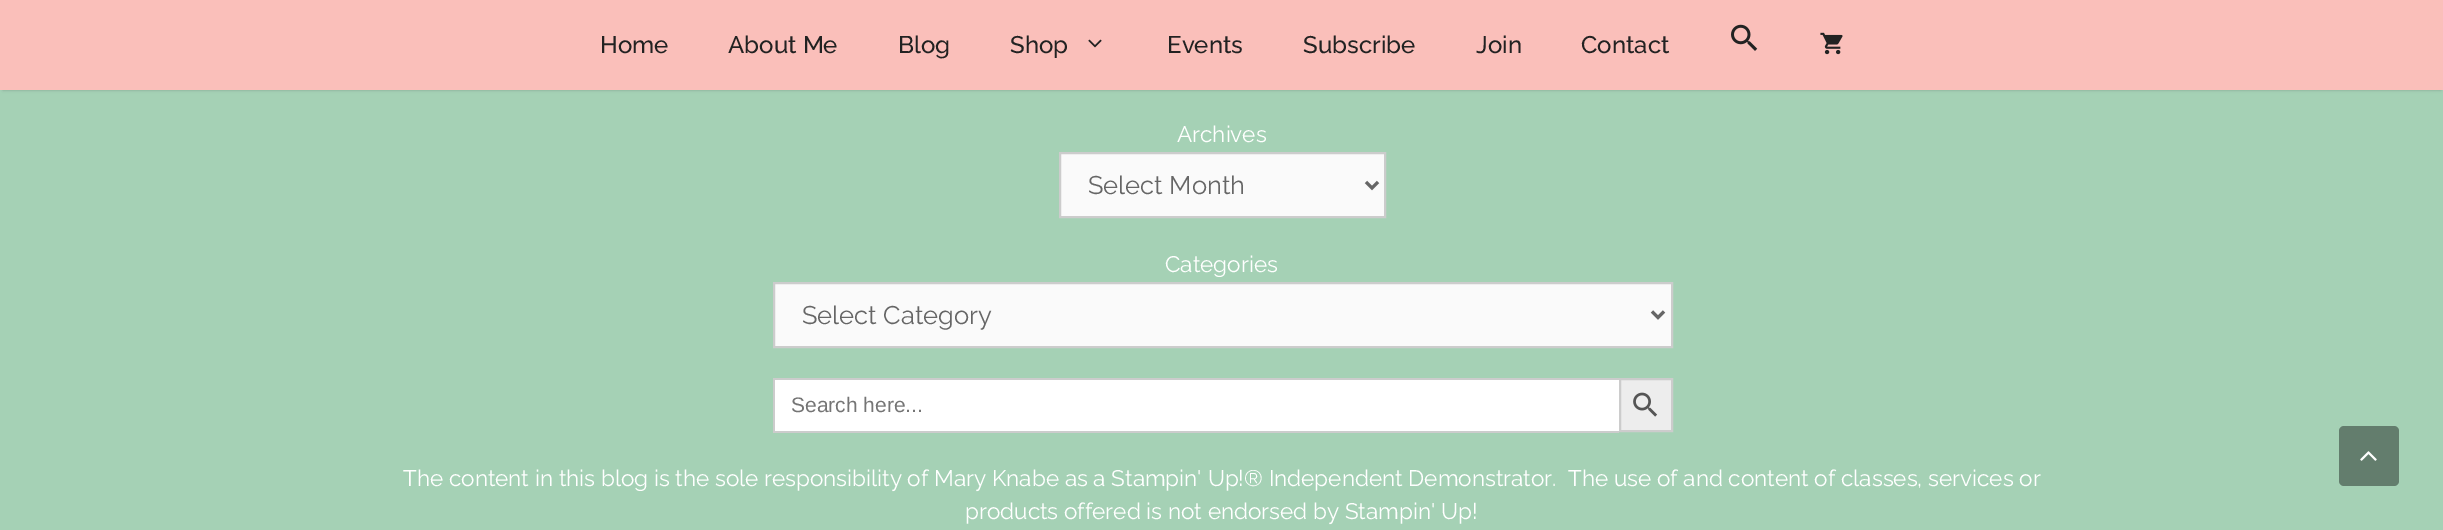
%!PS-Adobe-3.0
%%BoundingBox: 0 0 2443 530
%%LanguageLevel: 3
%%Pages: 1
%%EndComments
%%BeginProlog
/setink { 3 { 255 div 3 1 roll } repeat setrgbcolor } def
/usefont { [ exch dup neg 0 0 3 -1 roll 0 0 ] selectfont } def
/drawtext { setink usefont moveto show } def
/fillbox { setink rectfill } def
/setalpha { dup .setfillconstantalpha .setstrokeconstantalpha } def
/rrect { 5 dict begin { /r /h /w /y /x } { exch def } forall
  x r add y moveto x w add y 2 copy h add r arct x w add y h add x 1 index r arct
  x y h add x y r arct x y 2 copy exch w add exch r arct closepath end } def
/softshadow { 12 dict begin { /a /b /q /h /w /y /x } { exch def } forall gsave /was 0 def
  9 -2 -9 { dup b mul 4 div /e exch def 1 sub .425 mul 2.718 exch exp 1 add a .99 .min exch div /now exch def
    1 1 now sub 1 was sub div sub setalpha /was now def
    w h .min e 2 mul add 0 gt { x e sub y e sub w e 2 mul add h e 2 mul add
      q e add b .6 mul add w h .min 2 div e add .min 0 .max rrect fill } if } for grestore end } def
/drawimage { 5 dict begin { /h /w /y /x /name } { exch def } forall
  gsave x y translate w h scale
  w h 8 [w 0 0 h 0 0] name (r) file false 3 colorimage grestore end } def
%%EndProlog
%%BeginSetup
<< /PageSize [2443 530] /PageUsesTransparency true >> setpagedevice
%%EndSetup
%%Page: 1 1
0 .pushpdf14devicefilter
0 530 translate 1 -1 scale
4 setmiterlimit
0 0 2443 530 165 209 181 fillbox
0 0 0 setink
3 6 2438 84 0 1.5 0.2 softshadow
0 0 2443 90 250 191 186 fillbox
(Home) 600 53 /Raleway-Medium 24 34 34 34 drawtext
(About Me) 728 53 /Raleway-Medium 24 34 34 34 drawtext
(Blog) 898 53 /Raleway-Medium 24 34 34 34 drawtext
(Shop) 1010 53 /Raleway-Medium 24 34 34 34 drawtext
(assets/img1.rgb) 1088 39 14 9 drawimage
(Events) 1167 53 /Raleway-Medium 24 34 34 34 drawtext
(Subscribe) 1303 53 /Raleway-Medium 24 34 34 34 drawtext
(Join) 1476 53 /Raleway-Medium 24 34 34 34 drawtext
(Contact) 1581 53 /Raleway-Medium 24 34 34 34 drawtext
(assets/img2.rgb) 1731 24 27 27 drawimage
(assets/img3.rgb) 1820 32 23 23 drawimage
(Archives) 1177 142 /Raleway-Regular 22.5 255 255 255 drawtext
250 250 250 setink
1060 153 moveto 1385 153 lineto 1385 217 lineto 1060 217 lineto closepath gsave fill grestore
204 204 204 setink
2 setlinewidth
stroke
102 102 102 setink
3 setlinewidth
1366 182 moveto 1372 188 lineto 1378 182 lineto stroke
(Select Month) 1088 194 /Raleway-Regular 25.5 102 102 102 drawtext
(Categories) 1165 272 /Raleway-Regular 22.5 255 255 255 drawtext
250 250 250 setink
774 283 moveto 1672 283 lineto 1672 347 lineto 774 347 lineto closepath gsave fill grestore
204 204 204 setink
2 setlinewidth
stroke
102 102 102 setink
3 setlinewidth
1652 311.5 moveto 1658 317.5 lineto 1664 311.5 lineto stroke
(Select Category) 802 324 /Raleway-Regular 25.5 102 102 102 drawtext
775 380 844 51 255 255 255 fillbox
773 378 846 2 204 204 204 fillbox
773 431 846 2 204 204 204 fillbox
773 378 2 54 204 204 204 fillbox
(Search here...) 791 412 /LiberationSans-Regular 21 117 117 117 drawtext
237 237 237 setink
1620 379 moveto 1672 379 lineto 1672 431 lineto 1620 431 lineto closepath gsave fill grestore
204 204 204 setink
2 setlinewidth
stroke
(assets/img4.rgb) 1633 392 25 25 drawimage
(The content in this blog is the sole responsibility of Mary Knabe as a Stampin' Up!® Independent Demonstrator.  The use of and content of classes, services or) 403 486 /Raleway-Regular 22.5 255 255 255 drawtext
(products offered is not endorsed by Stampin' Up!) 965 519 /Raleway-Regular 22.5 255 255 255 drawtext
99 125 109 setink
2339 426 60 60 5 rrect fill
(assets/img5.rgb) 2360 451 17 10 drawimage
.poppdf14devicefilter showpage
%%EOF
